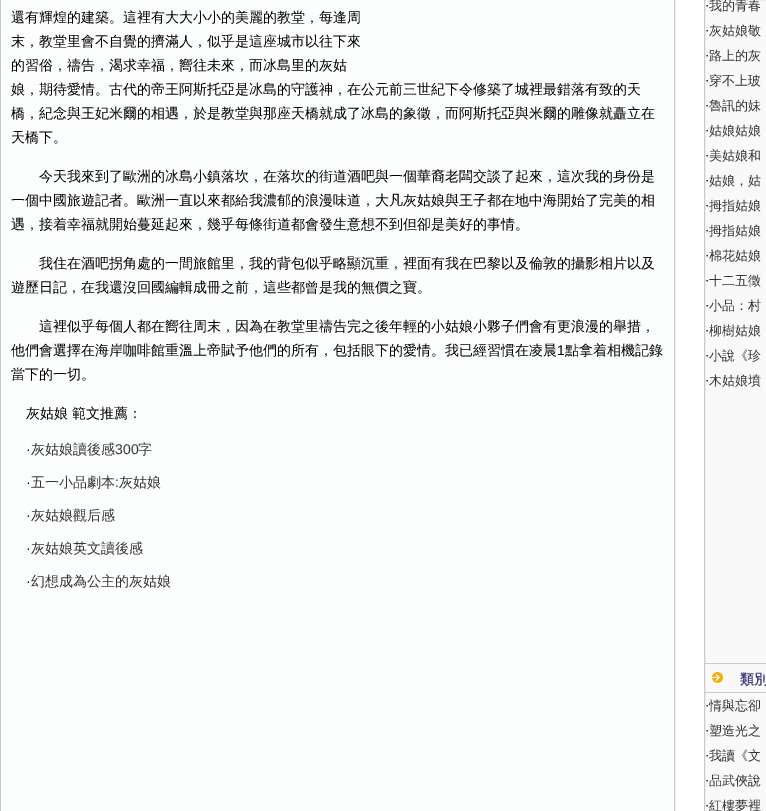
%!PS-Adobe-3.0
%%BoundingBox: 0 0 766 811
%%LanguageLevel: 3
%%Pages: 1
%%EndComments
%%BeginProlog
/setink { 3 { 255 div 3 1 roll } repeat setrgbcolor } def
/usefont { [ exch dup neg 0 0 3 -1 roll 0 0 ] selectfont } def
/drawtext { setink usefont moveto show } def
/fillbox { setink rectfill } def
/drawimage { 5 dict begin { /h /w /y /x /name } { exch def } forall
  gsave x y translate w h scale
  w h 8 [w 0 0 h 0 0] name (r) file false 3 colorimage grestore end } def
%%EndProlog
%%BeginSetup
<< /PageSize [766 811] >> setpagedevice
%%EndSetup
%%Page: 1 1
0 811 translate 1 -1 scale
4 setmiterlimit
0 0 766 811 255 255 255 fillbox
202 202 202 setink
0.5 -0.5 674 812 rectstroke
1 0 673 811 252 253 253 fillbox
(還有輝煌的建築。這裡有大大小小的美麗的教堂，每逢周) 11 22 /WenQuanYiZenHei-Medium 14 0 0 0 drawtext
(末，教堂里會不自覺的擠滿人，似乎是這座城市以往下來) 11 46 /WenQuanYiZenHei-Medium 14 0 0 0 drawtext
(的習俗，禱告，渴求幸福，嚮往未來，而冰島里的灰姑) 11 70 /WenQuanYiZenHei-Medium 14 0 0 0 drawtext
(娘，期待愛情。古代的帝王阿斯托亞是冰島的守護神，在公元前三世紀下令修築了城裡最錯落有致的天) 11 94 /WenQuanYiZenHei-Medium 14 0 0 0 drawtext
(橋，紀念與王妃米爾的相遇，於是教堂與那座天橋就成了冰島的象徵，而阿斯托亞與米爾的雕像就矗立在) 11 118 /WenQuanYiZenHei-Medium 14 0 0 0 drawtext
(天橋下。) 11 142 /WenQuanYiZenHei-Medium 14 0 0 0 drawtext
(今天我來到了歐洲的冰島小鎮落坎，在落坎的街道酒吧與一個華裔老闆交談了起來，這次我的身份是) 39 181 /WenQuanYiZenHei-Medium 14 0 0 0 drawtext
(一個中國旅遊記者。歐洲一直以來都給我濃郁的浪漫味道，大凡灰姑娘與王子都在地中海開始了完美的相) 11 205 /WenQuanYiZenHei-Medium 14 0 0 0 drawtext
(遇，接着幸福就開始蔓延起來，幾乎每條街道都會發生意想不到但卻是美好的事情。) 11 229 /WenQuanYiZenHei-Medium 14 0 0 0 drawtext
(我住在酒吧拐角處的一間旅館里，我的背包似乎略顯沉重，裡面有我在巴黎以及倫敦的攝影相片以及) 39 268 /WenQuanYiZenHei-Medium 14 0 0 0 drawtext
(遊歷日記，在我還沒回國編輯成冊之前，這些都曾是我的無價之寶。) 11 292 /WenQuanYiZenHei-Medium 14 0 0 0 drawtext
(這裡似乎每個人都在嚮往周末，因為在教堂里禱告完之後年輕的小姑娘小夥子們會有更浪漫的舉措，) 39 331 /WenQuanYiZenHei-Medium 14 0 0 0 drawtext
(他們會選擇在海岸咖啡館重溫上帝賦予他們的所有，包括眼下的愛情。我已經習慣在凌晨) 11 355 /WenQuanYiZenHei-Medium 14 0 0 0 drawtext
(1) 557 355 /LiberationSans-Regular 14 0 0 0 drawtext
(點拿着相機記錄) 565 355 /WenQuanYiZenHei-Medium 14 0 0 0 drawtext
(當下的一切。) 11 379 /WenQuanYiZenHei-Medium 14 0 0 0 drawtext
(灰姑娘 範文推薦：) 26 418 /WenQuanYiZenHei-Medium 14 0 0 0 drawtext
(·) 26 454 /LiberationSans-Regular 14 0 0 0 drawtext
(灰姑娘讀後感) 31 454 /WenQuanYiZenHei-Medium 14 51 51 51 drawtext
(300) 115 454 /LiberationSans-Regular 14 51 51 51 drawtext
(字) 138 454 /WenQuanYiZenHei-Medium 14 51 51 51 drawtext
(·) 26 487 /LiberationSans-Regular 14 0 0 0 drawtext
(五一小品劇本) 31 487 /WenQuanYiZenHei-Medium 14 51 51 51 drawtext
(:) 115 487 /LiberationSans-Regular 14 51 51 51 drawtext
(灰姑娘) 119 487 /WenQuanYiZenHei-Medium 14 51 51 51 drawtext
(·) 26 520 /LiberationSans-Regular 14 0 0 0 drawtext
(灰姑娘觀后感) 31 520 /WenQuanYiZenHei-Medium 14 51 51 51 drawtext
(·) 26 553 /LiberationSans-Regular 14 0 0 0 drawtext
(灰姑娘英文讀後感) 31 553 /WenQuanYiZenHei-Medium 14 51 51 51 drawtext
(·) 26 586 /LiberationSans-Regular 14 0 0 0 drawtext
(幻想成為公主的灰姑娘) 31 586 /WenQuanYiZenHei-Medium 14 51 51 51 drawtext
249 249 249 setink
704.5 -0.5 moveto 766.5 -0.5 lineto 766.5 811.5 lineto 704.5 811.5 lineto closepath gsave fill grestore
202 202 202 setink
stroke
(·) 705 10 /LiberationSerif-Regular 13 0 0 0 drawtext
(我的青春) 709 10 /WenQuanYiZenHei-Medium 13 51 51 51 drawtext
(·) 705 35 /LiberationSerif-Regular 13 0 0 0 drawtext
(灰姑娘敬) 709 35 /WenQuanYiZenHei-Medium 13 51 51 51 drawtext
(·) 705 60 /LiberationSerif-Regular 13 0 0 0 drawtext
(路上的灰) 709 60 /WenQuanYiZenHei-Medium 13 51 51 51 drawtext
(·) 705 85 /LiberationSerif-Regular 13 0 0 0 drawtext
(穿不上玻) 709 85 /WenQuanYiZenHei-Medium 13 51 51 51 drawtext
(·) 705 110 /LiberationSerif-Regular 13 0 0 0 drawtext
(魯訊的妹) 709 110 /WenQuanYiZenHei-Medium 13 51 51 51 drawtext
(·) 705 135 /LiberationSerif-Regular 13 0 0 0 drawtext
(姑娘姑娘) 709 135 /WenQuanYiZenHei-Medium 13 51 51 51 drawtext
(·) 705 160 /LiberationSerif-Regular 13 0 0 0 drawtext
(美姑娘和) 709 160 /WenQuanYiZenHei-Medium 13 51 51 51 drawtext
(·) 705 185 /LiberationSerif-Regular 13 0 0 0 drawtext
(姑娘，姑) 709 185 /WenQuanYiZenHei-Medium 13 51 51 51 drawtext
(·) 705 210 /LiberationSerif-Regular 13 0 0 0 drawtext
(拇指姑娘) 709 210 /WenQuanYiZenHei-Medium 13 51 51 51 drawtext
(·) 705 235 /LiberationSerif-Regular 13 0 0 0 drawtext
(拇指姑娘) 709 235 /WenQuanYiZenHei-Medium 13 51 51 51 drawtext
(·) 705 260 /LiberationSerif-Regular 13 0 0 0 drawtext
(棉花姑娘) 709 260 /WenQuanYiZenHei-Medium 13 51 51 51 drawtext
(·) 705 285 /LiberationSerif-Regular 13 0 0 0 drawtext
(十二五徵) 709 285 /WenQuanYiZenHei-Medium 13 51 51 51 drawtext
(·) 705 310 /LiberationSerif-Regular 13 0 0 0 drawtext
(小品：村) 709 310 /WenQuanYiZenHei-Medium 13 51 51 51 drawtext
(·) 705 335 /LiberationSerif-Regular 13 0 0 0 drawtext
(柳樹姑娘) 709 335 /WenQuanYiZenHei-Medium 13 51 51 51 drawtext
(·) 705 360 /LiberationSerif-Regular 13 0 0 0 drawtext
(小說《珍) 709 360 /WenQuanYiZenHei-Medium 13 51 51 51 drawtext
(·) 705 385 /LiberationSerif-Regular 13 0 0 0 drawtext
(木姑娘墳) 709 385 /WenQuanYiZenHei-Medium 13 51 51 51 drawtext
(assets/img1.rgb) 712 672 12 12 drawimage
705 663 61 1 202 202 202 fillbox
705 692 61 1 202 202 202 fillbox
(類別) 740 684 /WenQuanYiZenHei-Bold 14 66 65 123 drawtext
(·) 705 710 /LiberationSerif-Regular 13 0 0 0 drawtext
(情與忘卻) 709 710 /WenQuanYiZenHei-Medium 13 51 51 51 drawtext
(·) 705 735 /LiberationSerif-Regular 13 0 0 0 drawtext
(塑造光之) 709 735 /WenQuanYiZenHei-Medium 13 51 51 51 drawtext
(·) 705 760 /LiberationSerif-Regular 13 0 0 0 drawtext
(我讀《文) 709 760 /WenQuanYiZenHei-Medium 13 51 51 51 drawtext
(·) 705 785 /LiberationSerif-Regular 13 0 0 0 drawtext
(品武俠說) 709 785 /WenQuanYiZenHei-Medium 13 51 51 51 drawtext
(·) 705 810 /LiberationSerif-Regular 13 0 0 0 drawtext
(紅樓夢裡) 709 810 /WenQuanYiZenHei-Medium 13 51 51 51 drawtext
showpage
%%EOF
